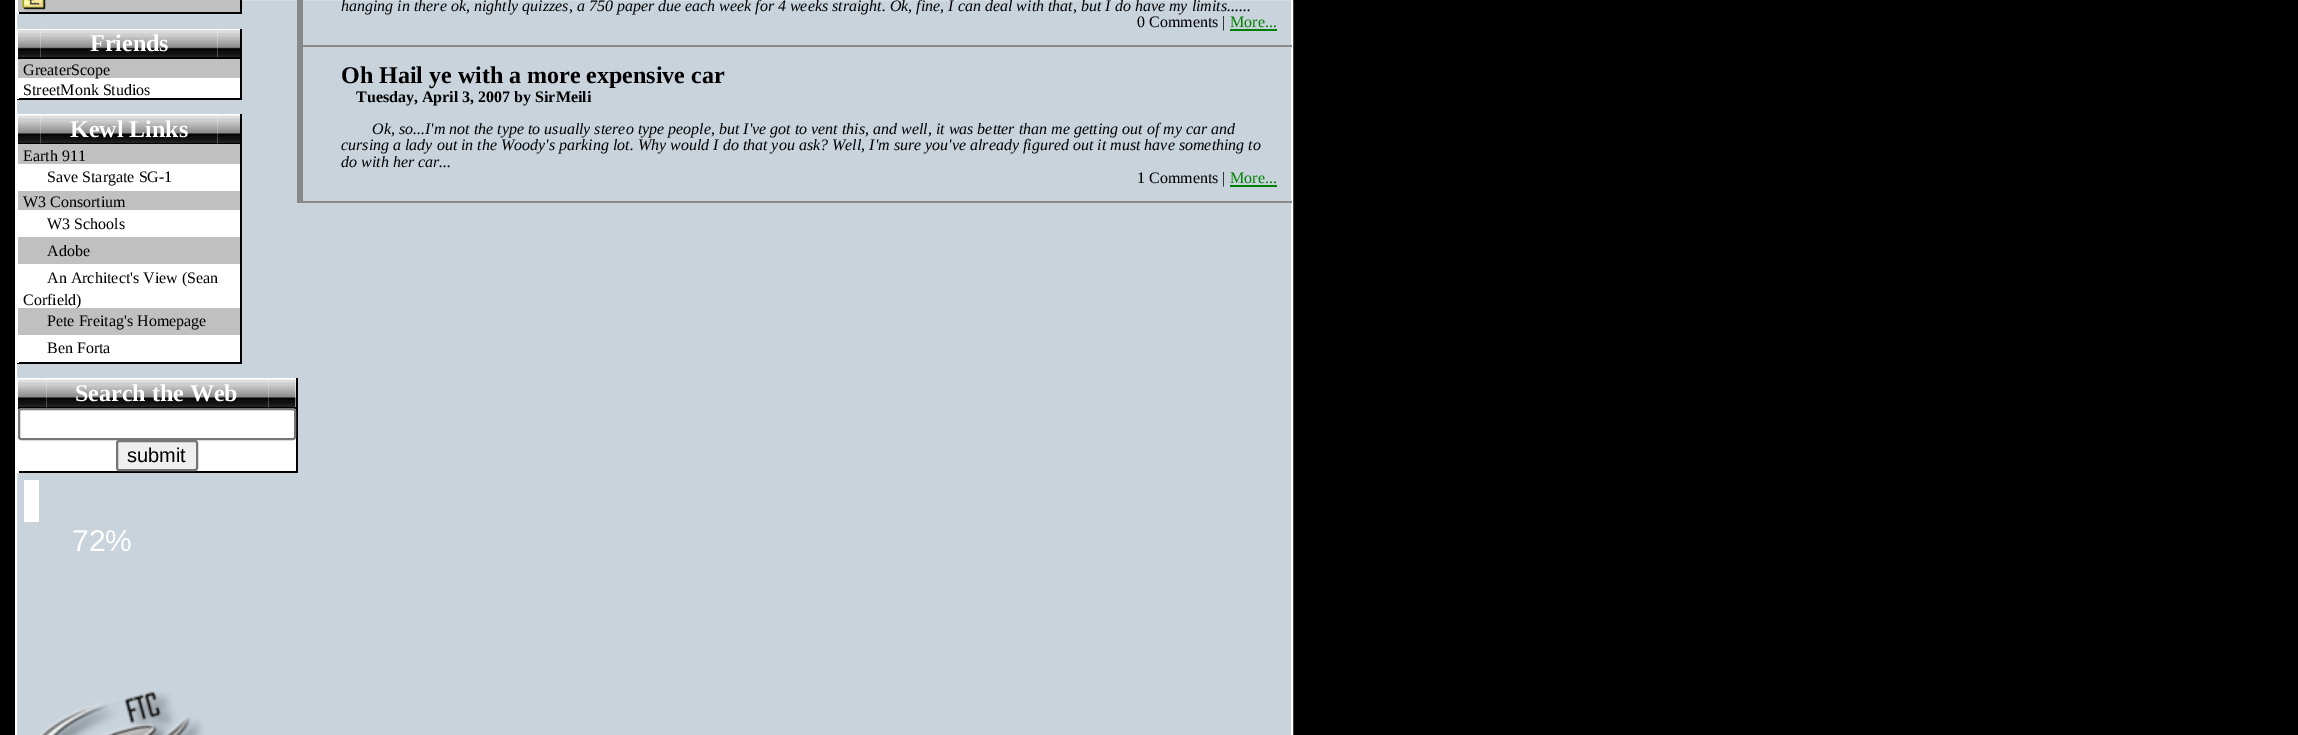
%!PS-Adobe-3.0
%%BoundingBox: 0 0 2298 735
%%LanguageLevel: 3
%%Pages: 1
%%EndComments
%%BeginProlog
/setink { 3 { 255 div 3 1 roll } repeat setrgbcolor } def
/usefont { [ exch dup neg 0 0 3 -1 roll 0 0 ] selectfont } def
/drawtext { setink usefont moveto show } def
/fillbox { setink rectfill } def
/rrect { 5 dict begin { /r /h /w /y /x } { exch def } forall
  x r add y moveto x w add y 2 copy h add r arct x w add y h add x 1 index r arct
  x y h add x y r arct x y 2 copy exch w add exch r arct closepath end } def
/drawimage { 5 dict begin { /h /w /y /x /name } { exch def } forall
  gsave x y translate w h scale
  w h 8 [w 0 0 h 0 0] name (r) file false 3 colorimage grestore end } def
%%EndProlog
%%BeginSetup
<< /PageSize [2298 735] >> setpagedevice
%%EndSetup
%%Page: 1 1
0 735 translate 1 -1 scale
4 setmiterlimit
0 0 2298 735 0 0 0 fillbox
200 211 220 setink
16 -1 moveto 1292 -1 lineto 1292 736 lineto 16 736 lineto closepath gsave fill grestore
255 255 255 setink
2 setlinewidth
stroke
240 0 2 14 0 0 0 fillbox
17 12 225 2 0 0 0 fillbox
17 0 2 14 255 255 255 fillbox
18 0 222 12 192 192 192 fillbox
(assets/img1.rgb) 22 0 24 10 drawimage
19 29 221 69 255 255 255 fillbox
240 29 2 70 0 0 0 fillbox
17 98 225 2 0 0 0 fillbox
17 29 2 70 255 255 255 fillbox
(assets/img2.rgb) 18 30 23 27 drawimage
18 57 23 2 0 0 0 fillbox
(assets/img3.rgb) 40 30 178 29 drawimage
41 57 177 2 0 0 0 fillbox
(Friends) 90 51 /LiberationSerif-Bold 24 255 255 255 drawtext
(assets/img4.rgb) 217 30 23 29 drawimage
218 57 22 2 0 0 0 fillbox
18 59 222 19 192 192 192 fillbox
(GreaterScope) 23 75 /LiberationSerif-Regular 16 0 0 0 drawtext
(StreetMonk Studios) 23 95 /LiberationSerif-Regular 16 0 0 0 drawtext
19 114 221 248 255 255 255 fillbox
240 114 2 249 0 0 0 fillbox
17 362 225 2 0 0 0 fillbox
17 114 2 249 255 255 255 fillbox
(assets/img5.rgb) 18 115 23 28 drawimage
18 143 23 1 0 0 0 fillbox
(assets/img6.rgb) 40 115 178 29 drawimage
41 143 177 1 0 0 0 fillbox
(Kewl Links) 70 137 /LiberationSerif-Bold 24 255 255 255 drawtext
(assets/img7.rgb) 217 115 23 29 drawimage
218 143 22 1 0 0 0 fillbox
18 144 222 20 192 192 192 fillbox
(Earth 911) 23 161 /LiberationSerif-Regular 16 0 0 0 drawtext
(Save Stargate SG-1) 47 182 /LiberationSerif-Regular 16 0 0 0 drawtext
18 191 222 19 192 192 192 fillbox
(W3 Consortium) 23 207 /LiberationSerif-Regular 16 0 0 0 drawtext
(W3 Schools) 47 229 /LiberationSerif-Regular 16 0 0 0 drawtext
18 237 222 27 192 192 192 fillbox
(Adobe) 47 256 /LiberationSerif-Regular 16 0 0 0 drawtext
(An Architect's View \(Sean) 47 283 /LiberationSerif-Regular 16 0 0 0 drawtext
18 308 222 27 192 192 192 fillbox
(Corfield\)) 23 305 /LiberationSerif-Regular 16 0 0 0 drawtext
(Pete Freitag's Homepage) 47 326 /LiberationSerif-Regular 16 0 0 0 drawtext
(Ben Forta) 47 353 /LiberationSerif-Regular 16 0 0 0 drawtext
19 378 277 93 255 255 255 fillbox
296 378 2 95 0 0 0 fillbox
17 471 280 2 0 0 0 fillbox
17 378 2 95 255 255 255 fillbox
(assets/img8.rgb) 18 379 29 28 drawimage
18 407 29 2 0 0 0 fillbox
(assets/img9.rgb) 46 379 223 29 drawimage
47 407 222 1 0 0 0 fillbox
(Search the Web) 75 401 /LiberationSerif-Bold 24 255 255 255 drawtext
(assets/img10.rgb) 268 379 28 29 drawimage
269 407 27 2 0 0 0 fillbox
255 255 255 setink
19 409 276 30 2 rrect gsave fill grestore
118 118 118 setink
stroke
239 239 239 setink
117 441 80 29 2 rrect gsave fill grestore
118 118 118 setink
stroke
(submit) 127 462 /LiberationSans-Regular 20 0 0 0 drawtext
24 480 15 42 255 255 255 fillbox
(72%) 72 551 /LiberationSans-Regular 30 255 255 255 drawtext
297 0 6 203 136 136 136 fillbox
303 45 989 2 136 136 136 fillbox
(hanging in there ok, nightly quizzes, a 750 paper due each week for 4 weeks straight. Ok, fine, I can deal with that, but I do have my limits......) 341 11 /LiberationSerif-Italic 16 0 0 0 drawtext
(0 Comments |) 1137 27 /LiberationSerif-Regular 16 0 0 0 drawtext
(More...) 1230 27 /LiberationSerif-Regular 16 0 128 0 drawtext
1230 29 47 2 0 128 0 fillbox
303 201 989 2 136 136 136 fillbox
(Oh Hail ye with a more expensive car) 341 83 /LiberationSerif-Bold 24 0 0 0 drawtext
(Tuesday, April 3, 2007 by SirMeili) 356 102 /LiberationSerif-Bold 16 0 0 0 drawtext
(Ok, so...I'm not the type to usually stereo type people, but I've got to vent this, and well, it was better than me getting out of my car and) 372 134 /LiberationSerif-Italic 16 0 0 0 drawtext
(cursing a lady out in the Woody's parking lot. Why would I do that you ask? Well, I'm sure you've already figured out it must have something to) 341 150 /LiberationSerif-Italic 16 0 0 0 drawtext
(do with her car...) 341 167 /LiberationSerif-Italic 16 0 0 0 drawtext
(1 Comments |) 1137 183 /LiberationSerif-Regular 16 0 0 0 drawtext
(More...) 1230 183 /LiberationSerif-Regular 16 0 128 0 drawtext
1230 185 47 2 0 128 0 fillbox
(assets/img11.rgb) 39 691 165 44 drawimage
showpage
%%EOF
